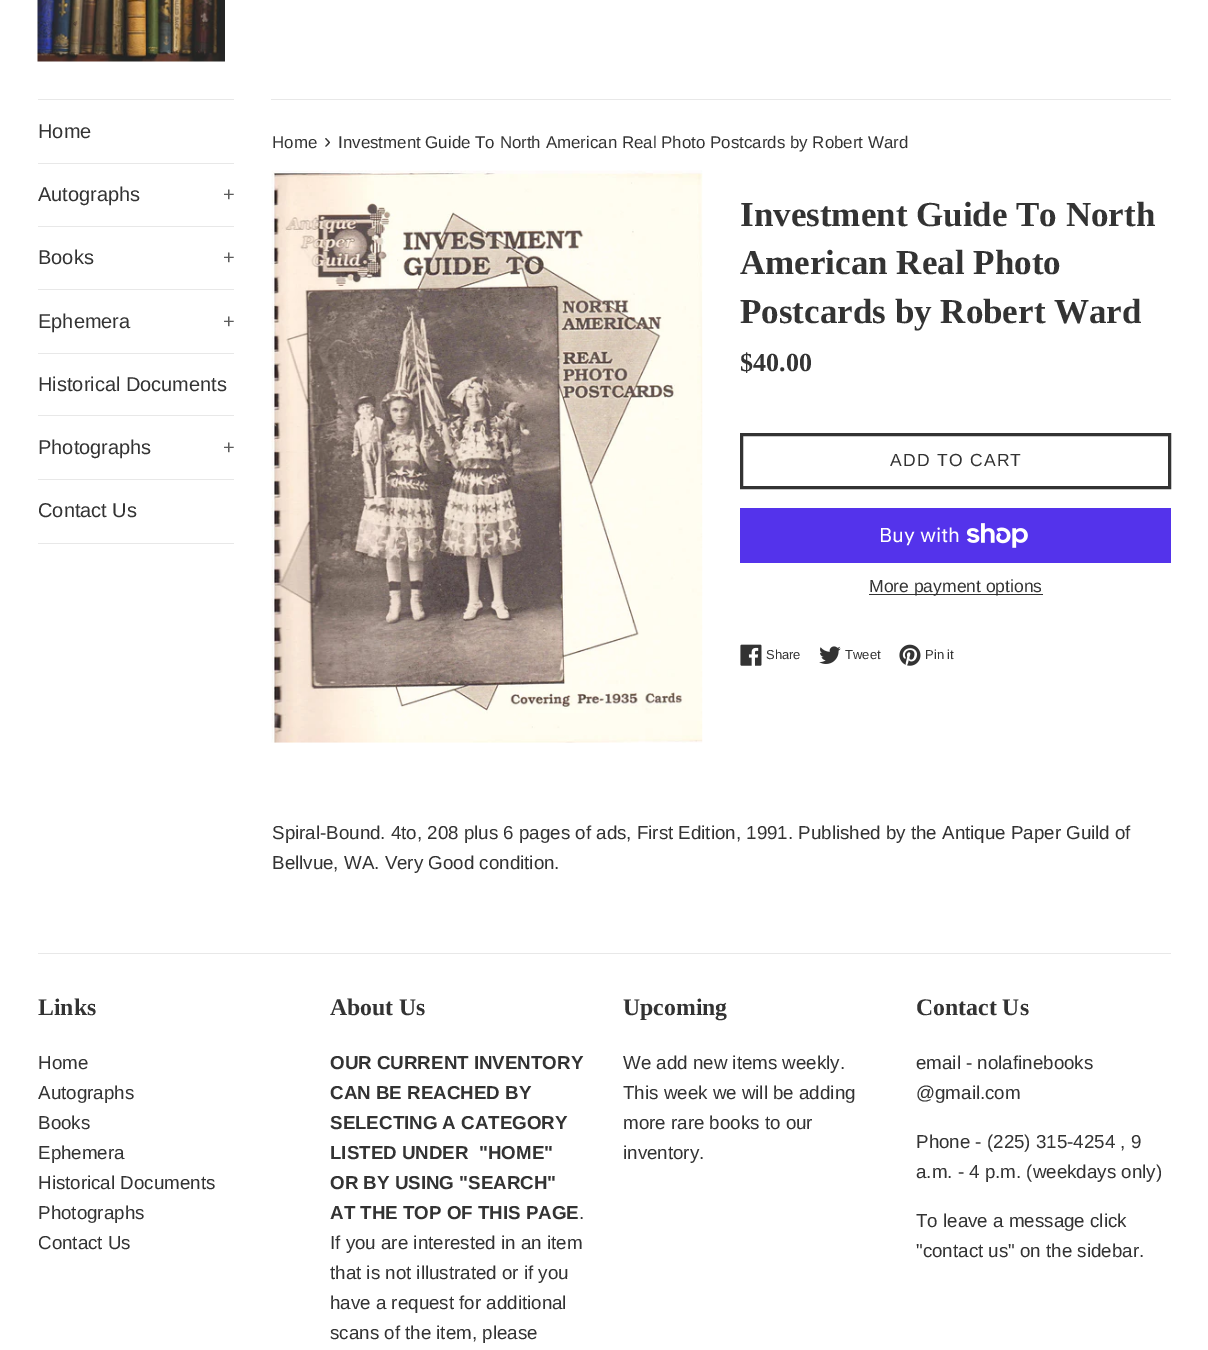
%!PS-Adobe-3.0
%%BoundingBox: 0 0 1208 1350
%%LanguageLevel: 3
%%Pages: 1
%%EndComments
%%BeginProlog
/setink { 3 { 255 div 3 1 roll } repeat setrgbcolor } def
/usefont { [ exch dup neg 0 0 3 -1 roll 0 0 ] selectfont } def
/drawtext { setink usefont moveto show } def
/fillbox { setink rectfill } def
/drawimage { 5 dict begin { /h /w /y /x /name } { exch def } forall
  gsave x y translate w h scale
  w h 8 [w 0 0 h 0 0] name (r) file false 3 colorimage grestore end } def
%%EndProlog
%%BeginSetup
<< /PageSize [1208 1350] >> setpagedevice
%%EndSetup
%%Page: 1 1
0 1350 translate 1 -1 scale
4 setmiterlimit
0 0 1208 1350 255 255 255 fillbox
(assets/img1.rgb) 37 0 188 62 drawimage
38 99 196 1 232 232 232 fillbox
38 163 196 1 232 232 232 fillbox
(Home) 38 138 /LiberationSans-Regular 20 51 51 51 drawtext
38 226 196 1 232 232 232 fillbox
(Autographs) 38 201 /LiberationSans-Regular 20 51 51 51 drawtext
(+) 223 201 /LiberationSans-Regular 20 92 92 92 drawtext
38 289 196 1 232 232 232 fillbox
(Books) 38 264 /LiberationSans-Regular 20 51 51 51 drawtext
(+) 223 264 /LiberationSans-Regular 20 92 92 92 drawtext
38 353 196 1 232 232 232 fillbox
(Ephemera) 38 328 /LiberationSans-Regular 20 51 51 51 drawtext
(+) 223 328 /LiberationSans-Regular 20 92 92 92 drawtext
38 415 196 1 232 232 232 fillbox
(Historical Documents) 38 391 /LiberationSans-Regular 20 51 51 51 drawtext
38 479 196 1 232 232 232 fillbox
(Photographs) 38 454 /LiberationSans-Regular 20 51 51 51 drawtext
(+) 223 454 /LiberationSans-Regular 20 92 92 92 drawtext
38 543 196 1 232 232 232 fillbox
(Contact Us) 38 517 /LiberationSans-Regular 20 51 51 51 drawtext
271 99 900 1 232 232 232 fillbox
(Home) 272 148 /LiberationSans-Regular 16.9 51 51 51 drawtext
(›) 324 148 /LiberationSans-Regular 21 51 51 51 drawtext
(Investment Guide To North American Real Photo Postcards by Robert Ward) 338 148 /LiberationSans-Regular 16.9 51 51 51 drawtext
(assets/img2.rgb) 271 170 432 573 drawimage
(Investment Guide To North) 740 226 /LiberationSerif-Bold 35 51 51 51 drawtext
(American Real Photo) 740 274 /LiberationSerif-Bold 35 51 51 51 drawtext
(Postcards by Robert Ward) 740 323 /LiberationSerif-Bold 35 51 51 51 drawtext
($40.00) 740 371 /LiberationSerif-Bold 26 51 51 51 drawtext
3 setlinewidth
741.5 434.5 428 53 rectstroke
/LiberationSans-Regular 17.5 usefont
890 466 moveto 1.25 0 (ADD TO CART) ashow
740 508 431 55 84 51 235 fillbox
(Buy with) 879 542 /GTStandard-Regular 20 255 255 255 drawtext
(assets/img3.rgb) 966 523 62 25 drawimage
869 594 174 1 51 51 51 fillbox
(More payment options) 869 592 /LiberationSans-Regular 17.5 51 51 51 drawtext
(assets/img4.rgb) 740 644 22 22 drawimage
(Share) 766 659 /LiberationSans-Regular 13 51 51 51 drawtext
(assets/img5.rgb) 819 646 22 18 drawimage
(Tweet) 845 659 /LiberationSans-Regular 13 51 51 51 drawtext
(assets/img6.rgb) 899 644 22 22 drawimage
(Pin it) 925 659 /LiberationSans-Regular 13 51 51 51 drawtext
(Spiral-Bound. 4to, 208 plus 6 pages of ads, First Edition, 1991. Published by the Antique Paper Guild of) 272 839 /LiberationSans-Regular 18.75 51 51 51 drawtext
(Bellvue, WA. Very Good condition.) 272 869 /LiberationSans-Regular 18.75 51 51 51 drawtext
38 953 1133 1 232 232 232 fillbox
(Links) 38 1015 /LiberationSerif-Bold 23.75 51 51 51 drawtext
(Home) 38 1069 /LiberationSans-Regular 18.75 51 51 51 drawtext
(Autographs) 38 1099 /LiberationSans-Regular 18.75 51 51 51 drawtext
(Books) 38 1129 /LiberationSans-Regular 18.75 51 51 51 drawtext
(Ephemera) 38 1159 /LiberationSans-Regular 18.75 51 51 51 drawtext
(Historical Documents) 38 1189 /LiberationSans-Regular 18.75 51 51 51 drawtext
(Photographs) 38 1219 /LiberationSans-Regular 18.75 51 51 51 drawtext
(Contact Us) 38 1249 /LiberationSans-Regular 18.75 51 51 51 drawtext
(About Us) 330 1015 /LiberationSerif-Bold 23.75 51 51 51 drawtext
(OUR CURRENT INVENTORY) 330 1069 /LiberationSans-Bold 18.75 51 51 51 drawtext
(CAN BE REACHED BY) 330 1099 /LiberationSans-Bold 18.75 51 51 51 drawtext
(SELECTING A CATEGORY) 330 1129 /LiberationSans-Bold 18.75 51 51 51 drawtext
(LISTED UNDER  "HOME") 330 1159 /LiberationSans-Bold 18.75 51 51 51 drawtext
(OR BY USING "SEARCH") 330 1189 /LiberationSans-Bold 18.75 51 51 51 drawtext
(AT THE TOP OF THIS PAGE) 330 1219 /LiberationSans-Bold 18.75 51 51 51 drawtext
(.) 579 1219 /LiberationSans-Regular 18.75 51 51 51 drawtext
(If you are interested in an item) 330 1249 /LiberationSans-Regular 18.75 51 51 51 drawtext
(that is not illustrated or if you) 330 1279 /LiberationSans-Regular 18.75 51 51 51 drawtext
(have a request for additional) 330 1309 /LiberationSans-Regular 18.75 51 51 51 drawtext
(scans of the item, please) 330 1339 /LiberationSans-Regular 18.75 51 51 51 drawtext
(Upcoming) 623 1015 /LiberationSerif-Bold 23.75 51 51 51 drawtext
(We add new items weekly.) 623 1069 /LiberationSans-Regular 18.75 51 51 51 drawtext
(This week we will be adding) 623 1099 /LiberationSans-Regular 18.75 51 51 51 drawtext
(more rare books to our) 623 1129 /LiberationSans-Regular 18.75 51 51 51 drawtext
(inventory.) 623 1159 /LiberationSans-Regular 18.75 51 51 51 drawtext
(Contact Us) 916 1015 /LiberationSerif-Bold 23.75 51 51 51 drawtext
(email - nolafinebooks) 916 1069 /LiberationSans-Regular 18.75 51 51 51 drawtext
(@gmail.com) 916 1099 /LiberationSans-Regular 18.75 51 51 51 drawtext
(Phone - \(225\) 315-4254 , 9) 916 1148 /LiberationSans-Regular 18.75 51 51 51 drawtext
(a.m. - 4 p.m. \(weekdays only\)) 916 1178 /LiberationSans-Regular 18.75 51 51 51 drawtext
(To leave a message click) 916 1227 /LiberationSans-Regular 18.75 51 51 51 drawtext
("contact us" on the sidebar.) 916 1257 /LiberationSans-Regular 18.75 51 51 51 drawtext
showpage
%%EOF
